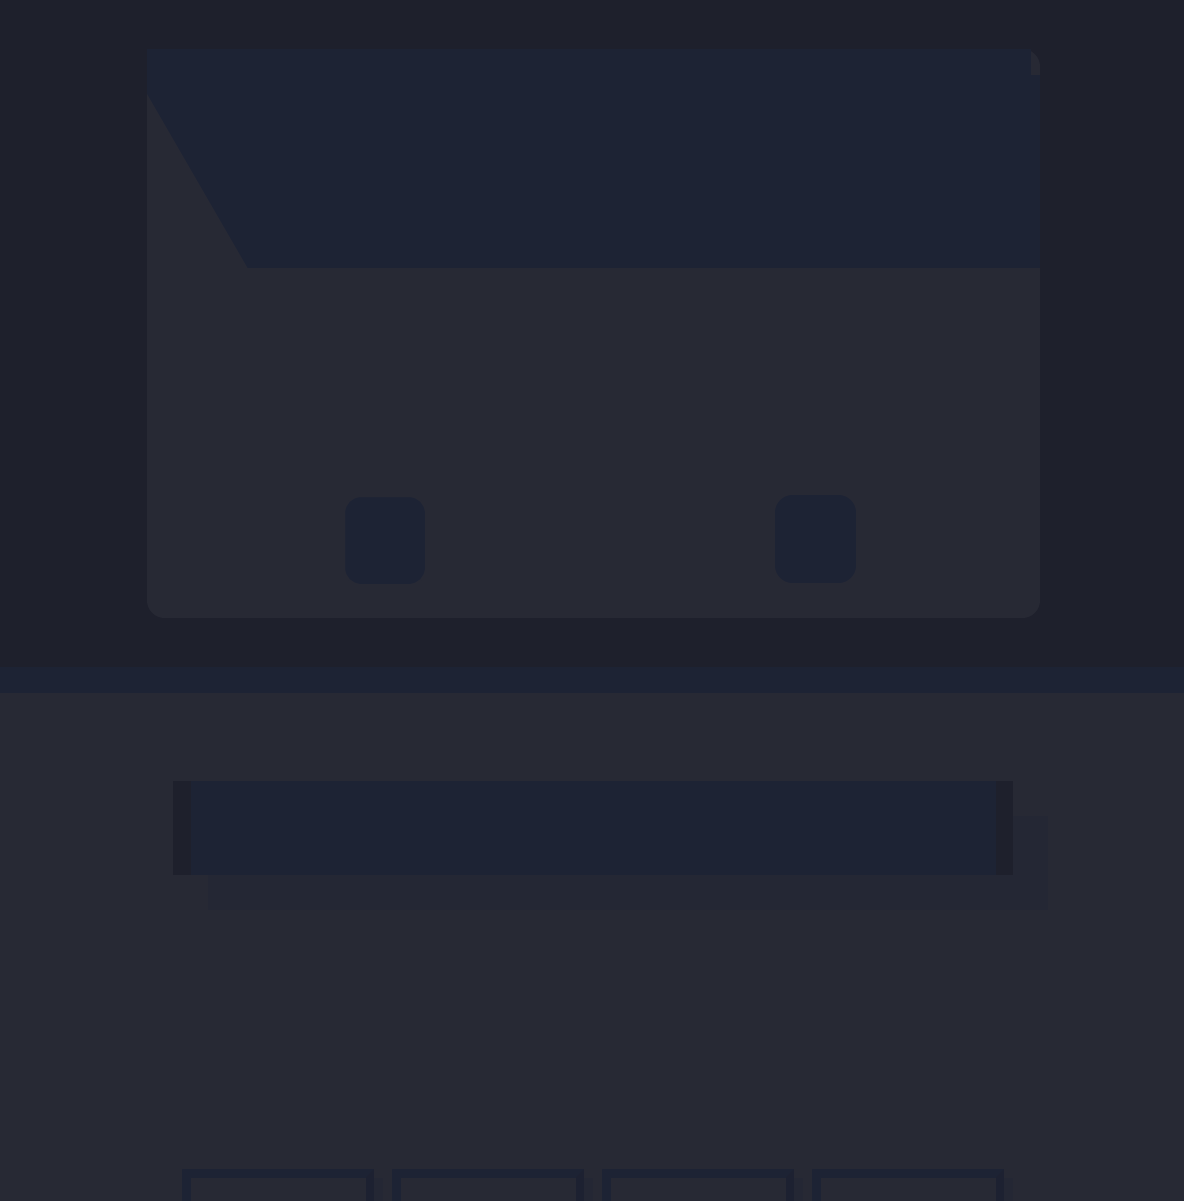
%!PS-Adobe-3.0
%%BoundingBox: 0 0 1184 1201
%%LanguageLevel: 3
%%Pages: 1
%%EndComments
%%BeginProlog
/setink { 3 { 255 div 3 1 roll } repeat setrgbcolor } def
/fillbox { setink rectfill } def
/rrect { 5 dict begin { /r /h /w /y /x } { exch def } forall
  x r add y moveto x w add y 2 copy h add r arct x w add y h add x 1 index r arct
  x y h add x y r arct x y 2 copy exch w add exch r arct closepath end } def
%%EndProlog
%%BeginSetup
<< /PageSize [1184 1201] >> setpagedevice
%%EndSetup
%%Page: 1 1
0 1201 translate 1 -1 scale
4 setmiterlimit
0 0 1184 1201 30 32 44 fillbox
0 667 1184 26 29 35 52 fillbox
39 41 52 setink
147 49 moveto 1022 49 lineto 1032 49 1040 57 1040 67 curveto 1040 600 lineto 1040 610 1032 618 1022 618 curveto 165 618 lineto 155 618 147 610 147 600 curveto closepath fill
147 49 884 26 29 35 52 fillbox
gsave 147 75 moveto 1040 75 lineto 1040 268 lineto 147 268 lineto closepath clip newpath
<< /ShadingType 2 /ColorSpace /DeviceRGB /Coords [217 389 970 -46] /Extend [true true] /Function << /FunctionType 3 /Domain [0 1] /Functions [<< /FunctionType 2 /Domain [0 1] /C0 [0.153 0.161 0.204] /C1 [0.153 0.161 0.204] /N 1 >> << /FunctionType 2 /Domain [0 1] /C0 [0.114 0.137 0.204] /C1 [0.114 0.137 0.204] /N 1 >>] /Bounds [0.1] /Encode [0 1 0 1] >> >> shfill grestore
344 496 82 89 17 rrect gsave fill grestore
39 41 52 setink
2 setlinewidth
stroke
29 35 52 setink
775 495 81 88 18 rrect fill
0 693 1184 508 39 41 52 fillbox
36 39 52 setink
208 875 moveto 208 910 lineto 1048 910 lineto 1048 816 lineto 1013 816 lineto 1013 875 lineto closepath fill
191 781 805 94 29 35 52 fillbox
996 781 17 94 30 32 44 fillbox
173 781 18 94 30 32 44 fillbox
36 39 52 setink
191 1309 moveto 191 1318 lineto 383 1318 lineto 383 1178 lineto 374 1178 lineto 374 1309 lineto closepath fill
29 35 52 setink
182 1169 moveto 374 1169 lineto 366 1178 lineto 191 1178 lineto closepath fill
29 33 49 setink
374 1169 moveto 374 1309 lineto 366 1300 lineto 366 1178 lineto closepath fill
29 35 52 setink
182 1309 moveto 182 1169 lineto 191 1178 lineto 191 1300 lineto closepath fill
36 39 52 setink
401 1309 moveto 401 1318 lineto 593 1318 lineto 593 1178 lineto 584 1178 lineto 584 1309 lineto closepath fill
29 35 52 setink
392 1169 moveto 584 1169 lineto 576 1178 lineto 401 1178 lineto closepath fill
29 33 49 setink
584 1169 moveto 584 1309 lineto 576 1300 lineto 576 1178 lineto closepath fill
29 35 52 setink
392 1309 moveto 392 1169 lineto 401 1178 lineto 401 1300 lineto closepath fill
36 39 52 setink
611 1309 moveto 611 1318 lineto 803 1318 lineto 803 1178 lineto 794 1178 lineto 794 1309 lineto closepath fill
29 35 52 setink
602 1169 moveto 794 1169 lineto 786 1178 lineto 611 1178 lineto closepath fill
29 33 49 setink
794 1169 moveto 794 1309 lineto 786 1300 lineto 786 1178 lineto closepath fill
29 35 52 setink
602 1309 moveto 602 1169 lineto 611 1178 lineto 611 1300 lineto closepath fill
36 39 52 setink
821 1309 moveto 821 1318 lineto 1013 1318 lineto 1013 1178 lineto 1004 1178 lineto 1004 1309 lineto closepath fill
29 35 52 setink
812 1169 moveto 1004 1169 lineto 996 1178 lineto 821 1178 lineto closepath fill
29 33 49 setink
1004 1169 moveto 1004 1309 lineto 996 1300 lineto 996 1178 lineto closepath fill
29 35 52 setink
812 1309 moveto 812 1169 lineto 821 1178 lineto 821 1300 lineto closepath fill
showpage
%%EOF
